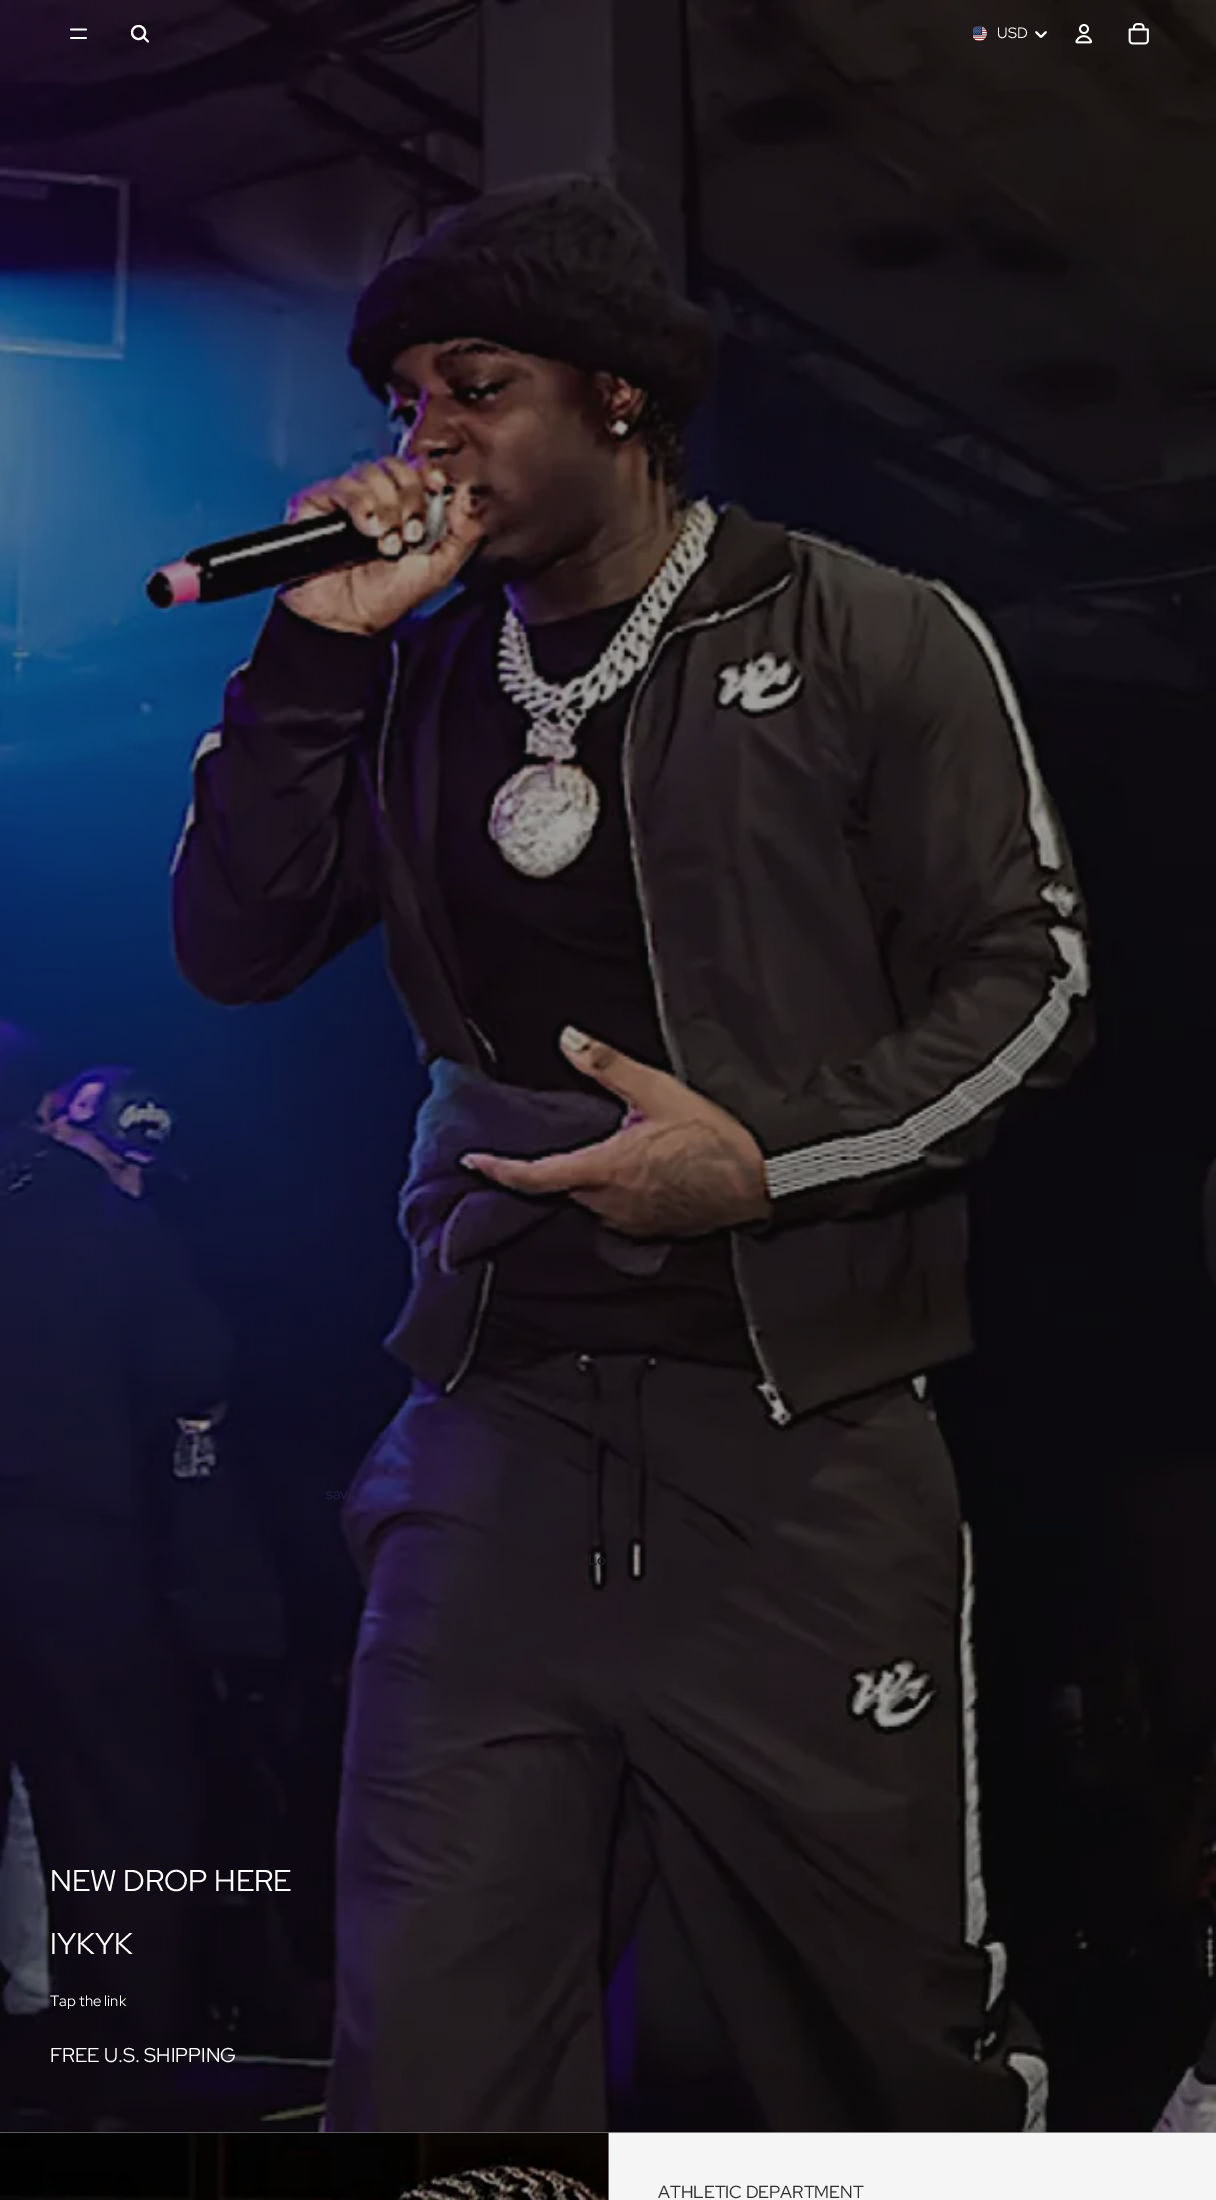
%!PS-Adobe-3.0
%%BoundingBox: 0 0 1216 2200
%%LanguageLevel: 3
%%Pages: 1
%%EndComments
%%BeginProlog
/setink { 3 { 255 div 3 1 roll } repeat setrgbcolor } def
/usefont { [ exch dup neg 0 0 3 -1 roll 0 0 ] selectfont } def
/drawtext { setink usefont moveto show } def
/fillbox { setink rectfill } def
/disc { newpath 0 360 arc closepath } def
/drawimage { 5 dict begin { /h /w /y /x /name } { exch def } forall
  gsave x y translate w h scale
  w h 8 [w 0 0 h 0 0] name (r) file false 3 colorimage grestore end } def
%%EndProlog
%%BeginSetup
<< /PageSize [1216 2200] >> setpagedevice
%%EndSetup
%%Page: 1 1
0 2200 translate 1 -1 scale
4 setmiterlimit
0 0 1216 2200 160 160 160 fillbox
(assets/img4.rgb) 0 0 1216 2133 drawimage
255 255 255 setink
1.8 setlinewidth
1 setlinecap
71 29.5 moveto 86 29.5 lineto 71 38 moveto 86 38 lineto stroke
2.1 setlinewidth
0 setlinecap
138.5 32.5 6.5 disc stroke
1 setlinecap
1 setlinejoin
143.5 37 moveto 148 41.5 lineto stroke
(assets/img1.rgb) 973 26 14 15 drawimage
(USD) 997 38 /RedHatDisplay-Regular 15 255 255 255 drawtext
1.8 setlinewidth
1046 32 moveto 1041 37 lineto 1036 32 lineto stroke
(assets/img2.rgb) 1075 24 18 20 drawimage
(assets/img3.rgb) 1128 23 21 22 drawimage
(sav) 326 1499 /RedHatDisplay-Regular 15 36 28 73 drawtext
(Lo) 588 1565 /RedHatDisplay-Bold 15 29 26 29 drawtext
(NEW DROP HERE) 50 1891 /RedHatDisplay-Regular 30 255 255 255 drawtext
(IYKYK) 50 1954 /RedHatDisplay-Regular 30 255 255 255 drawtext
(Tap the link) 50 2006 /RedHatDisplay-Regular 15 255 255 255 drawtext
(FREE U.S. SHIPPING) 50 2062 /RedHatDisplay-Regular 20 255 255 255 drawtext
608 2133 608 67 245 245 245 fillbox
(assets/img5.rgb) 0 2132 609 68 drawimage
(ATHLETIC DEPARTMENT) 658 2198 /RedHatDisplay-Regular 17.5 47 47 47 drawtext
showpage
%%EOF
